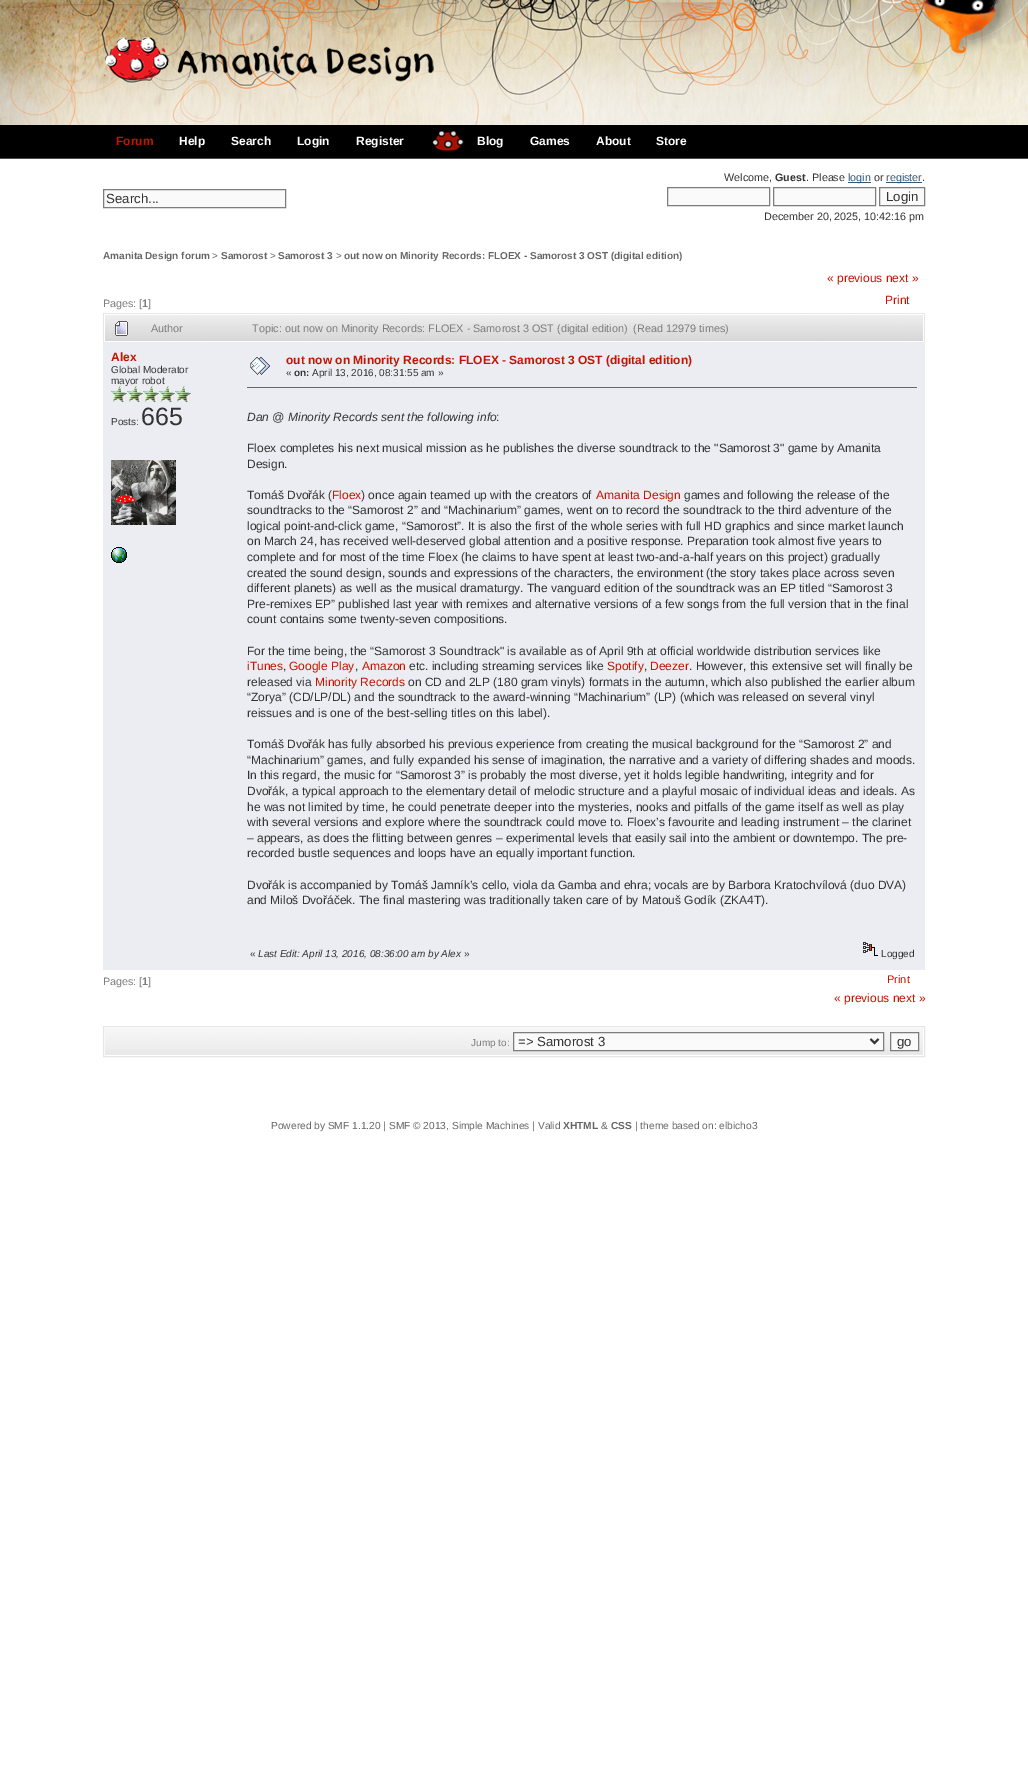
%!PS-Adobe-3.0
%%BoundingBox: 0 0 1028 1767
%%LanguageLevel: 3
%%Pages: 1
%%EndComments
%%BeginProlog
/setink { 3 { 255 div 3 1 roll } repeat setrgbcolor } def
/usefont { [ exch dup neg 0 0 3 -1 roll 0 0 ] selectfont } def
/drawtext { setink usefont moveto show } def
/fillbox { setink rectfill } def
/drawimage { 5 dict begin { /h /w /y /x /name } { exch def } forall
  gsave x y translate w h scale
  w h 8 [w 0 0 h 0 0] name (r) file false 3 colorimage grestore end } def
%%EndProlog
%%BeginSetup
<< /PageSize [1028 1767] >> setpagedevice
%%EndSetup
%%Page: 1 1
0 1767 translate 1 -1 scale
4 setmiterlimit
0 0 1028 1767 255 255 255 fillbox
(assets/img1.rgb) 0 0 1028 125 drawimage
(assets/img2.rgb) 104 37 330 45 drawimage
0 125 1028 33 0 0 0 fillbox
0 158 1028 1 76 76 76 fillbox
(Forum) 116 145 /LiberationSans-Bold 12 195 20 1 drawtext
(Help) 179 145 /LiberationSans-Bold 12 255 255 255 drawtext
(Search) 231 145 /LiberationSans-Bold 12 255 255 255 drawtext
(Login) 297 145 /LiberationSans-Bold 12 255 255 255 drawtext
(Register) 356 145 /LiberationSans-Bold 12 255 255 255 drawtext
(assets/img3.rgb) 432 131 32 20 drawimage
(Blog) 477 145 /LiberationSans-Bold 12 255 255 255 drawtext
(Games) 530 145 /LiberationSans-Bold 12 255 255 255 drawtext
(About) 596 145 /LiberationSans-Bold 12 255 255 255 drawtext
(Store) 656 145 /LiberationSans-Bold 12 255 255 255 drawtext
250 250 250 setink
103.5 189.5 moveto 285.5 189.5 lineto 285.5 207.5 lineto 103.5 207.5 lineto closepath gsave fill grestore
125 125 125 setink
stroke
(Search...) 106 203 /LiberationSans-Regular 13.25 51 51 51 drawtext
(Welcome,) 724 181 /LiberationSans-Regular 10.75 51 51 51 drawtext
(Guest) 775 181 /LiberationSans-Bold 10.75 51 51 51 drawtext
(. Please) 806 181 /LiberationSans-Regular 10.75 51 51 51 drawtext
848 182 23 1 51 88 122 fillbox
(login) 848 181 /LiberationSans-Regular 10.75 51 88 122 drawtext
(or) 874 181 /LiberationSans-Regular 10.75 51 51 51 drawtext
886 182 36 1 51 88 122 fillbox
(register) 886 181 /LiberationSans-Regular 10.75 51 88 122 drawtext
(.) 922 181 /LiberationSans-Regular 10.75 51 51 51 drawtext
250 250 250 setink
667.5 187.5 moveto 769.5 187.5 lineto 769.5 205.5 lineto 667.5 205.5 lineto closepath gsave fill grestore
125 125 125 setink
stroke
250 250 250 setink
773.5 187.5 moveto 875.5 187.5 lineto 875.5 205.5 lineto 773.5 205.5 lineto closepath gsave fill grestore
125 125 125 setink
stroke
250 250 250 setink
879.5 187.5 moveto 924.5 187.5 lineto 924.5 205.5 lineto 879.5 205.5 lineto closepath gsave fill grestore
125 125 125 setink
stroke
(Login) 886 201 /LiberationSans-Regular 13.25 51 51 51 drawtext
(December 20, 2025, 10:42:16 pm) 764 220 /LiberationSans-Regular 10.75 51 51 51 drawtext
(Amanita Design forum) 103 259 /LiberationSans-Bold 10 102 102 102 drawtext
(>) 212 259 /LiberationSans-Regular 10 102 102 102 drawtext
(Samorost) 221 259 /LiberationSans-Bold 10 102 102 102 drawtext
(>) 270 259 /LiberationSans-Regular 10 102 102 102 drawtext
(Samorost 3) 278 259 /LiberationSans-Bold 10 102 102 102 drawtext
(>) 336 259 /LiberationSans-Regular 10 102 102 102 drawtext
(out now on Minority Records: FLOEX - Samorost 3 OST \(digital edition\)) 344 259 /LiberationSans-Bold 10 102 102 102 drawtext
(Pages: [) 103 307 /LiberationSans-Regular 10.75 125 125 125 drawtext
(1) 142 307 /LiberationSans-Bold 10.75 125 125 125 drawtext
(]) 148 307 /LiberationSans-Regular 10.75 125 125 125 drawtext
(« previous next ») 827 282 /LiberationSans-Regular 12 195 20 1 drawtext
(Print) 885 304 /LiberationSans-Regular 12 195 20 1 drawtext
103 313 822 1 230 230 230 fillbox
924 313 1 29 230 230 230 fillbox
103 313 1 29 230 230 230 fillbox
(assets/img4.rgb) 105 315 36 26 drawimage
(assets/img5.rgb) 115 321 13 15 drawimage
(assets/img6.rgb) 141 315 105 26 drawimage
(Author) 151 332 /LiberationSans-Regular 10.85 125 125 125 drawtext
(assets/img7.rgb) 246 315 677 26 drawimage
(Topic: out now on Minority Records: FLOEX - Samorost 3 OST \(digital edition\)  \(Read 12979 times\)) 252 332 /LiberationSans-Regular 10.85 125 125 125 drawtext
103 342 822 628 236 237 243 fillbox
(Alex) 111 361 /LiberationSans-Bold 12 195 20 1 drawtext
(Global Moderator) 111 373 /LiberationSans-Regular 10 51 51 51 drawtext
(mayor robot) 111 384 /LiberationSans-Regular 10 51 51 51 drawtext
(assets/img8.rgb) 111 386 16 16 drawimage
(assets/img9.rgb) 127 386 16 16 drawimage
(assets/img9.rgb) 143 386 16 16 drawimage
(assets/img9.rgb) 159 386 16 16 drawimage
(assets/img9.rgb) 175 386 16 16 drawimage
(Posts:) 111 425 /LiberationSans-Regular 10 51 51 51 drawtext
(665) 141 425 /LiberationSans-Regular 25 51 51 51 drawtext
(assets/img10.rgb) 111 460 65 65 drawimage
(assets/img11.rgb) 111 547 16 16 drawimage
(assets/img12.rgb) 250 357 20 18 drawimage
(out now on Minority Records: FLOEX - Samorost 3 OST \(digital edition\)) 286 364 /LiberationSans-Bold 12 195 20 1 drawtext
(«) 286 376 /LiberationSans-Regular 10 51 51 51 drawtext
(on:) 294 376 /LiberationSans-Bold 10 51 51 51 drawtext
(April 13, 2016, 08:31:55 am ») 312 376 /LiberationSans-Regular 10 51 51 51 drawtext
247 387 670 1 102 102 102 fillbox
(Dan @ Minority Records sent the following info) 247 421 /LiberationSans-Italic 12 51 51 51 drawtext
(:) 496 421 /LiberationSans-Regular 12 51 51 51 drawtext
(Floex completes his next musical mission as he publishes the diverse soundtrack to the "Samorost 3" game by Amanita) 247 452 /LiberationSans-Regular 12 51 51 51 drawtext
(Design.) 247 468 /LiberationSans-Regular 12 51 51 51 drawtext
(Tomáš Dvořák \() 247 499 /LiberationSans-Regular 12 51 51 51 drawtext
(Floex) 332 499 /LiberationSans-Regular 12 195 20 1 drawtext
(\) once again teamed up with the creators of) 361 499 /LiberationSans-Regular 12 51 51 51 drawtext
(Amanita Design) 596 499 /LiberationSans-Regular 12 195 20 1 drawtext
(games and following the release of the) 684 499 /LiberationSans-Regular 12 51 51 51 drawtext
(soundtracks to the “Samorost 2” and “Machinarium” games, went on to record the soundtrack to the third adventure of the) 247 514 /LiberationSans-Regular 12 51 51 51 drawtext
(logical point-and-click game, “Samorost”. It is also the first of the whole series with full HD graphics and since market launch) 247 530 /LiberationSans-Regular 12 51 51 51 drawtext
(on March 24, has received well-deserved global attention and a positive response. Preparation took almost five years to) 247 545 /LiberationSans-Regular 12 51 51 51 drawtext
(complete and for most of the time Floex \(he claims to have spent at least two-and-a-half years on this project\) gradually) 247 561 /LiberationSans-Regular 12 51 51 51 drawtext
(created the sound design, sounds and expressions of the characters, the environment \(the story takes place across seven) 247 577 /LiberationSans-Regular 12 51 51 51 drawtext
(different planets\) as well as the musical dramaturgy. The vanguard edition of the soundtrack was an EP titled “Samorost 3) 247 592 /LiberationSans-Regular 12 51 51 51 drawtext
(Pre-remixes EP” published last year with remixes and alternative versions of a few songs from the full version that in the final) 247 608 /LiberationSans-Regular 12 51 51 51 drawtext
(count contains some twenty-seven compositions.) 247 623 /LiberationSans-Regular 12 51 51 51 drawtext
(For the time being, the “Samorost 3 Soundtrack" is available as of April 9th at official worldwide distribution services like) 247 655 /LiberationSans-Regular 12 51 51 51 drawtext
(iTunes) 247 670 /LiberationSans-Regular 12 195 20 1 drawtext
(,) 283 670 /LiberationSans-Regular 12 51 51 51 drawtext
(Google Play) 289 670 /LiberationSans-Regular 12 195 20 1 drawtext
(,) 355 670 /LiberationSans-Regular 12 51 51 51 drawtext
(Amazon) 362 670 /LiberationSans-Regular 12 195 20 1 drawtext
(etc. including streaming services like) 409 670 /LiberationSans-Regular 12 51 51 51 drawtext
(Spotify) 607 670 /LiberationSans-Regular 12 195 20 1 drawtext
(,) 644 670 /LiberationSans-Regular 12 51 51 51 drawtext
(Deezer) 650 670 /LiberationSans-Regular 12 195 20 1 drawtext
(. However, this extensive set will finally be) 689 670 /LiberationSans-Regular 12 51 51 51 drawtext
(released via) 247 686 /LiberationSans-Regular 12 51 51 51 drawtext
(Minority Records) 315 686 /LiberationSans-Regular 12 195 20 1 drawtext
(on CD and 2LP \(180 gram vinyls\) formats in the autumn, which also published the earlier album) 408 686 /LiberationSans-Regular 12 51 51 51 drawtext
(“Zorya” \(CD/LP/DL\) and the soundtrack to the award-winning “Machinarium” \(LP\) \(which was released on several vinyl) 247 701 /LiberationSans-Regular 12 51 51 51 drawtext
(reissues and is one of the best-selling titles on this label\).) 247 717 /LiberationSans-Regular 12 51 51 51 drawtext
(Tomáš Dvořák has fully absorbed his previous experience from creating the musical background for the “Samorost 2” and) 247 748 /LiberationSans-Regular 12 51 51 51 drawtext
(“Machinarium” games, and fully expanded his sense of imagination, the narrative and a variety of differing shades and moods.) 247 764 /LiberationSans-Regular 12 51 51 51 drawtext
(In this regard, the music for “Samorost 3” is probably the most diverse, yet it holds legible handwriting, integrity and for) 247 779 /LiberationSans-Regular 12 51 51 51 drawtext
(Dvořák, a typical approach to the elementary detail of melodic structure and a playful mosaic of individual ideas and ideals. As) 247 795 /LiberationSans-Regular 12 51 51 51 drawtext
(he was not limited by time, he could penetrate deeper into the mysteries, nooks and pitfalls of the game itself as well as play) 247 811 /LiberationSans-Regular 12 51 51 51 drawtext
(with several versions and explore where the soundtrack could move to. Floex’s favourite and leading instrument – the clarinet) 247 826 /LiberationSans-Regular 12 51 51 51 drawtext
(– appears, as does the flitting between genres – experimental levels that easily sail into the ambient or downtempo. The pre-) 247 842 /LiberationSans-Regular 12 51 51 51 drawtext
(recorded bustle sequences and loops have an equally important function.) 247 857 /LiberationSans-Regular 12 51 51 51 drawtext
(Dvořák is accompanied by Tomáš Jamník’s cello, viola da Gamba and ehra; vocals are by Barbora Kratochvílová \(duo DVA\)) 247 889 /LiberationSans-Regular 12 51 51 51 drawtext
(and Miloš Dvořáček. The final mastering was traditionally taken care of by Matouš Godík \(ZKA4T\).) 247 904 /LiberationSans-Regular 12 51 51 51 drawtext
(«) 250 957 /LiberationSans-Regular 10 51 51 51 drawtext
(Last Edit: April 13, 2016, 08:36:00 am by Alex) 258 957 /LiberationSans-Italic 10 51 51 51 drawtext
(») 464 957 /LiberationSans-Regular 10 51 51 51 drawtext
(assets/img13.rgb) 863 942 15 14 drawimage
(Logged) 881 957 /LiberationSans-Regular 10 51 51 51 drawtext
(Pages: [) 103 985 /LiberationSans-Regular 10.75 125 125 125 drawtext
(1) 142 985 /LiberationSans-Bold 10.75 125 125 125 drawtext
(]) 148 985 /LiberationSans-Regular 10.75 125 125 125 drawtext
(Print) 887 983 /LiberationSans-Regular 11 195 20 1 drawtext
(« previous next ») 834 1002 /LiberationSans-Regular 12 195 20 1 drawtext
230 230 230 setink
103.5 1026.5 821 30 rectstroke
105 1050 818 5 233 233 233 fillbox
(assets/img14.rgb) 105 1028 818 22 drawimage
(Jump to:) 471 1046 /LiberationSans-Regular 10 125 125 125 drawtext
250 250 250 setink
513.5 1032.5 moveto 883.5 1032.5 lineto 883.5 1050.5 lineto 513.5 1050.5 lineto closepath gsave fill grestore
125 125 125 setink
stroke
51 51 51 setink
2 setlinewidth
870.5 1039 moveto 874.5 1043 lineto 878.5 1039 lineto stroke
(=> Samorost 3) 518 1046 /LiberationSans-Regular 13.25 51 51 51 drawtext
250 250 250 setink
890.5 1032.5 moveto 918.5 1032.5 lineto 918.5 1050.5 lineto 890.5 1050.5 lineto closepath gsave fill grestore
125 125 125 setink
1 setlinewidth
stroke
(go) 897 1046 /LiberationSans-Regular 13.25 51 51 51 drawtext
(Powered by SMF 1.1.20 | SMF © 2013, Simple Machines | Valid) 271 1129 /LiberationSans-Regular 10.2 102 102 102 drawtext
(XHTML) 563 1129 /LiberationSans-Bold 10.2 102 102 102 drawtext
(&) 601 1129 /LiberationSans-Regular 10.2 102 102 102 drawtext
(CSS) 611 1129 /LiberationSans-Bold 10.2 102 102 102 drawtext
(| theme based on: elbicho3) 635 1129 /LiberationSans-Regular 10.2 102 102 102 drawtext
showpage
%%EOF
